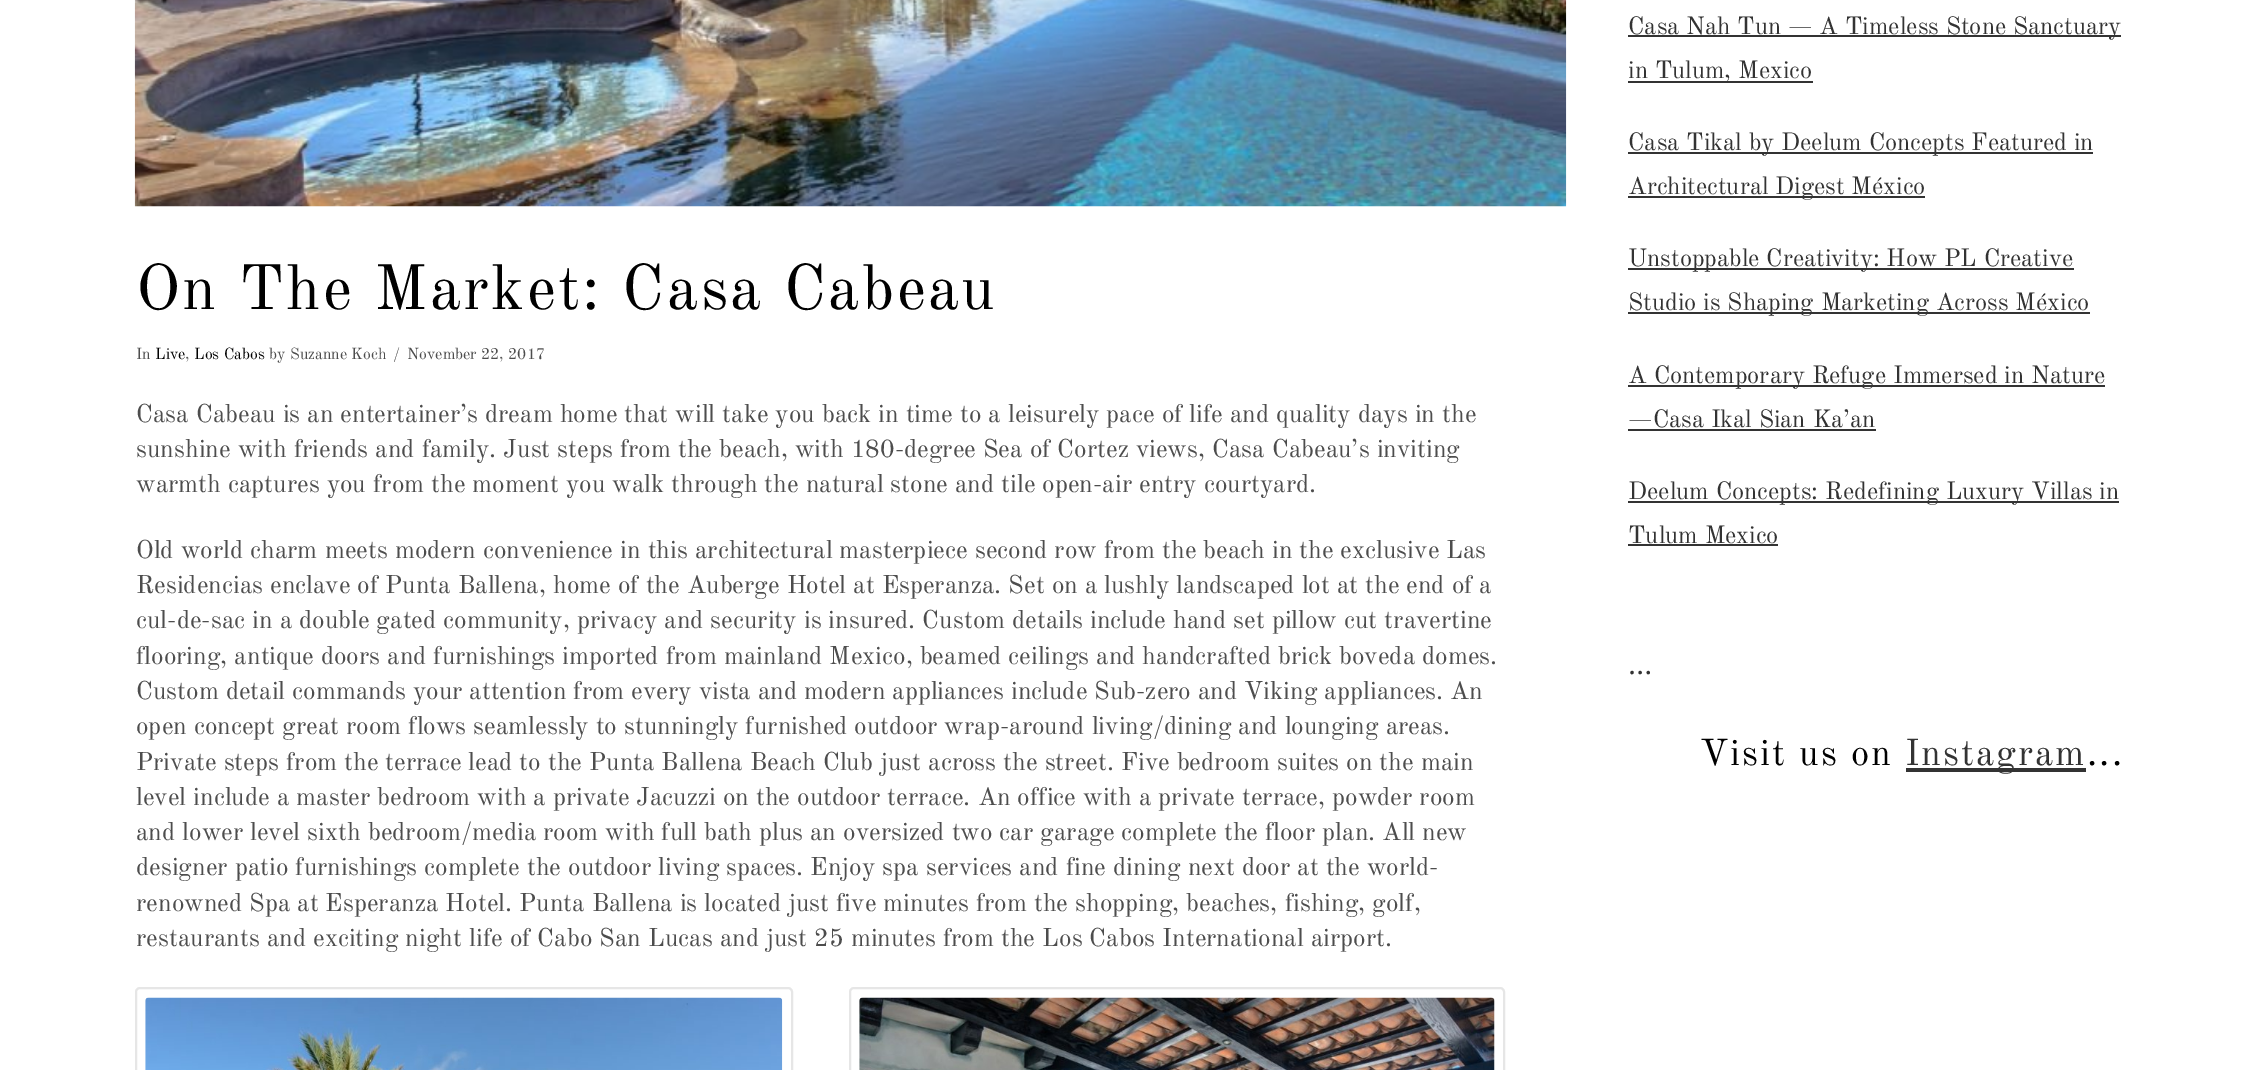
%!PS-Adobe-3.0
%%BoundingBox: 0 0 2259 1070
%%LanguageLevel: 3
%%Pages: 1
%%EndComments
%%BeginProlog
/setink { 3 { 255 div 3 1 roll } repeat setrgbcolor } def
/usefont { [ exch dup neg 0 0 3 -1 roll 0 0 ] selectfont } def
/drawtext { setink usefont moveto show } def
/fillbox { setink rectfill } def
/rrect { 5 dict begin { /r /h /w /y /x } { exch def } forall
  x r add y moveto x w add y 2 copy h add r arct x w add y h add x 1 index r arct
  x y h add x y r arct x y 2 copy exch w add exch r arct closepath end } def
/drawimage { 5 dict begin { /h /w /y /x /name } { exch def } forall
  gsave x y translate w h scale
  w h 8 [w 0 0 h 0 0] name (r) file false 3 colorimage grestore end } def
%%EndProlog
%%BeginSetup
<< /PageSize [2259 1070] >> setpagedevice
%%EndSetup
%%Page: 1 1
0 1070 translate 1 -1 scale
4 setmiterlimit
0 0 2259 1070 255 255 255 fillbox
(assets/img1.rgb) 134 0 1433 207 drawimage
/OldStandardTT-Regular 63 usefont
0 0 0 setink
136 309 moveto 2.4 0 (On The Market: Casa Cabeau) ashow
(In) 136 359 /OldStandardTT-Regular 15.75 77 77 77 drawtext
(Live) 155 359 /OldStandardTT-Regular 15.75 0 0 0 drawtext
(,) 185 359 /OldStandardTT-Regular 15.75 77 77 77 drawtext
(Los Cabos) 194 359 /OldStandardTT-Regular 15.75 0 0 0 drawtext
(by Suzanne Koch) 269 359 /OldStandardTT-Regular 15.75 77 77 77 drawtext
(/) 393 359 /OldStandardTT-Regular 15.75 77 77 77 drawtext
(November 22, 2017) 407 359 /OldStandardTT-Regular 15.75 77 77 77 drawtext
(Casa Cabeau is an entertainer’s dream home that will take you back in time to a leisurely pace of life and quality days in the) 136 422 /OldStandardTT-Regular 25.2 77 77 77 drawtext
(sunshine with friends and family. Just steps from the beach, with 180-degree Sea of Cortez views, Casa Cabeau’s inviting) 136 457 /OldStandardTT-Regular 25.2 77 77 77 drawtext
(warmth captures you from the moment you walk through the natural stone and tile open-air entry courtyard.) 136 492 /OldStandardTT-Regular 25.2 77 77 77 drawtext
(Old world charm meets modern convenience in this architectural masterpiece second row from the beach in the exclusive Las) 136 558 /OldStandardTT-Regular 25.2 77 77 77 drawtext
(Residencias enclave of Punta Ballena, home of the Auberge Hotel at Esperanza. Set on a lushly landscaped lot at the end of a) 136 593 /OldStandardTT-Regular 25.2 77 77 77 drawtext
(cul-de-sac in a double gated community, privacy and security is insured. Custom details include hand set pillow cut travertine) 136 628 /OldStandardTT-Regular 25.2 77 77 77 drawtext
136 664 moveto -0.1 0 32 (flooring, antique doors and furnishings imported from mainland Mexico, beamed ceilings and handcrafted brick boveda domes.) widthshow
136 699 moveto -0.1 0 32 (Custom detail commands your attention from every vista and modern appliances include Sub-zero and Viking appliances. An) widthshow
136 734 moveto -0.1 0 32 (open concept great room flows seamlessly to stunningly furnished outdoor wrap-around living/dining and lounging areas.) widthshow
(Private steps from the terrace lead to the Punta Ballena Beach Club just across the street. Five bedroom suites on the main) 136 770 /OldStandardTT-Regular 25.2 77 77 77 drawtext
(level include a master bedroom with a private Jacuzzi on the outdoor terrace. An office with a private terrace, powder room) 136 805 /OldStandardTT-Regular 25.2 77 77 77 drawtext
(and lower level sixth bedroom/media room with full bath plus an oversized two car garage complete the floor plan. All new) 136 840 /OldStandardTT-Regular 25.2 77 77 77 drawtext
(designer patio furnishings complete the outdoor living spaces. Enjoy spa services and fine dining next door at the world-) 136 875 /OldStandardTT-Regular 25.2 77 77 77 drawtext
(renowned Spa at Esperanza Hotel. Punta Ballena is located just five minutes from the shopping, beaches, fishing, golf,) 136 911 /OldStandardTT-Regular 25.2 77 77 77 drawtext
(restaurants and exciting night life of Cabo San Lucas and just 25 minutes from the Los Cabos International airport.) 136 946 /OldStandardTT-Regular 25.2 77 77 77 drawtext
230 230 230 setink
2 setlinewidth
136 988 656 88 4 rrect stroke
(assets/img2.rgb) 145 997 638 73 drawimage
850 988 654 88 4 rrect stroke
(assets/img3.rgb) 859 997 636 73 drawimage
1628 35 493 2 51 51 51 fillbox
(Casa Nah Tun — A Timeless Stone Sanctuary) 1628 34 /OldStandardTT-Regular 24.5 51 51 51 drawtext
1628 81 185 2 51 51 51 fillbox
(in Tulum, Mexico) 1628 78 /OldStandardTT-Regular 24.5 51 51 51 drawtext
1628 152 465 2 51 51 51 fillbox
(Casa Tikal by Deelum Concepts Featured in) 1628 150 /OldStandardTT-Regular 24.5 51 51 51 drawtext
1628 196 297 2 51 51 51 fillbox
(Architectural Digest México) 1628 194 /OldStandardTT-Regular 24.5 51 51 51 drawtext
1628 268 446 2 51 51 51 fillbox
(Unstoppable Creativity: How PL Creative) 1628 266 /OldStandardTT-Regular 24.5 51 51 51 drawtext
1628 312 462 2 51 51 51 fillbox
(Studio is Shaping Marketing Across México) 1628 310 /OldStandardTT-Regular 24.5 51 51 51 drawtext
1628 385 477 2 51 51 51 fillbox
(A Contemporary Refuge Immersed in Nature) 1628 383 /OldStandardTT-Regular 24.5 51 51 51 drawtext
(—Casa Ikal Sian Ka’an) 1628 427 /OldStandardTT-Regular 24.5 51 51 51 drawtext
1628 429 248 2 51 51 51 fillbox
1628 501 491 2 51 51 51 fillbox
(Deelum Concepts: Redefining Luxury Villas in) 1628 499 /OldStandardTT-Regular 24.5 51 51 51 drawtext
(Tulum Mexico) 1628 543 /OldStandardTT-Regular 24.5 51 51 51 drawtext
1628 544 150 2 51 51 51 fillbox
(…) 1628 674 /OldStandardTT-Regular 29 51 51 51 drawtext
/OldStandardTT-Regular 36.75 usefont
0 0 0 setink
1700 765 moveto 2 0 (Visit us on) ashow
1906 768 180 4 51 51 51 fillbox
1905 765 moveto 2 0 (Instagram) ashow
0 0 0 setink
2087 765 moveto 2 0 (...) ashow
showpage
%%EOF
